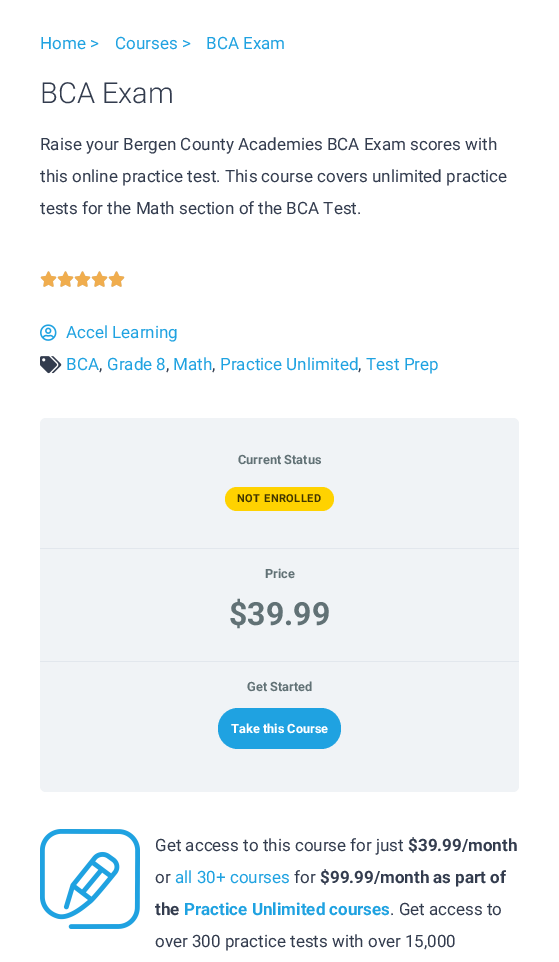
%!PS-Adobe-3.0
%%BoundingBox: 0 0 559 962
%%LanguageLevel: 3
%%Pages: 1
%%EndComments
%%BeginProlog
/setink { 3 { 255 div 3 1 roll } repeat setrgbcolor } def
/usefont { [ exch dup neg 0 0 3 -1 roll 0 0 ] selectfont } def
/drawtext { setink usefont moveto show } def
/fillbox { setink rectfill } def
/rrect { 5 dict begin { /r /h /w /y /x } { exch def } forall
  x r add y moveto x w add y 2 copy h add r arct x w add y h add x 1 index r arct
  x y h add x y r arct x y 2 copy exch w add exch r arct closepath end } def
/drawimage { 5 dict begin { /h /w /y /x /name } { exch def } forall
  gsave x y translate w h scale
  w h 8 [w 0 0 h 0 0] name (r) file false 3 colorimage grestore end } def
%%EndProlog
%%BeginSetup
<< /PageSize [559 962] >> setpagedevice
%%EndSetup
%%Page: 1 1
0 962 translate 1 -1 scale
4 setmiterlimit
0 0 559 962 255 255 255 fillbox
(Home >) 40 49 /Roboto-Regular 17 31 162 225 drawtext
(Courses >) 115 49 /Roboto-Regular 17 31 162 225 drawtext
(BCA Exam) 206 49 /Roboto-Regular 17 31 162 225 drawtext
(BCA Exam) 40 103 /Roboto-Light 29 51 60 78 drawtext
(Raise your Bergen County Academies BCA Exam scores with) 40 150 /Roboto-Regular 17 51 60 78 drawtext
(this online practice test. This course covers unlimited practice) 40 182 /Roboto-Regular 17 51 60 78 drawtext
(tests for the Math section of the BCA Test.) 40 214 /Roboto-Regular 17 51 60 78 drawtext
(assets/img1.rgb) 40 271 17 16 drawimage
(assets/img2.rgb) 40 271 17 16 drawimage
(assets/img1.rgb) 57 271 17 16 drawimage
(assets/img2.rgb) 57 271 17 16 drawimage
(assets/img1.rgb) 74 271 17 16 drawimage
(assets/img2.rgb) 74 271 17 16 drawimage
(assets/img1.rgb) 91 271 17 16 drawimage
(assets/img2.rgb) 91 271 17 16 drawimage
(assets/img1.rgb) 108 271 17 16 drawimage
(assets/img2.rgb) 108 271 17 16 drawimage
(assets/img3.rgb) 40 324 17 17 drawimage
(Accel Learning) 66 338 /Roboto-Regular 17 31 162 225 drawtext
(assets/img4.rgb) 40 356 22 18 drawimage
(BCA) 66 370 /Roboto-Regular 17 31 162 225 drawtext
(,) 99 370 /Roboto-Regular 17 51 60 78 drawtext
(Grade 8) 107 370 /Roboto-Regular 17 31 162 225 drawtext
(,) 166 370 /Roboto-Regular 17 51 60 78 drawtext
(Math) 173 370 /Roboto-Regular 17 31 162 225 drawtext
(,) 212 370 /Roboto-Regular 17 51 60 78 drawtext
(Practice Unlimited) 220 370 /Roboto-Regular 17 31 162 225 drawtext
(,) 358 370 /Roboto-Regular 17 51 60 78 drawtext
(Test Prep) 366 370 /Roboto-Regular 17 31 162 225 drawtext
240 243 246 setink
40 418 479 374 6 rrect fill
40 548 479 1 226 231 237 fillbox
(Current Status) 238 464 /Roboto-Bold 12.75 97 113 117 drawtext
255 210 0 setink
225 487 109 24 12 rrect fill
/Roboto-Bold 11 usefont
64 53 0 setink
237 502 moveto 0.5 0 (NOT ENROLLED) ashow
40 661 479 1 226 231 237 fillbox
(Price) 265 578 /Roboto-Bold 12.75 97 113 117 drawtext
($39.99) 229 625 /Roboto-Bold 32 97 113 117 drawtext
(Get Started) 247 691 /Roboto-Bold 12.75 97 113 117 drawtext
31 162 225 setink
218 708 123 41 20 rrect fill
(Take this Course) 231 733 /Roboto-ExtraBold 12.75 255 255 255 drawtext
(assets/img5.rgb) 40 829 100 100 drawimage
(Get access to this course for just) 155 851 /Roboto-Regular 17 51 60 78 drawtext
($39.99/month) 408 851 /Roboto-Bold 17 51 60 78 drawtext
(or) 155 883 /Roboto-Regular 17 51 60 78 drawtext
(all 30+ courses) 175 883 /Roboto-Regular 17 31 162 225 drawtext
(for) 294 883 /Roboto-Regular 17 51 60 78 drawtext
($99.99/month as part of) 320 883 /Roboto-Bold 17 51 60 78 drawtext
(the) 155 915 /Roboto-Bold 17 51 60 78 drawtext
(Practice Unlimited courses) 184 915 /Roboto-Bold 17 31 162 225 drawtext
(. Get access to) 390 915 /Roboto-Regular 17 51 60 78 drawtext
(over 300 practice tests with over 15,000) 155 947 /Roboto-Regular 17 51 60 78 drawtext
showpage
%%EOF
